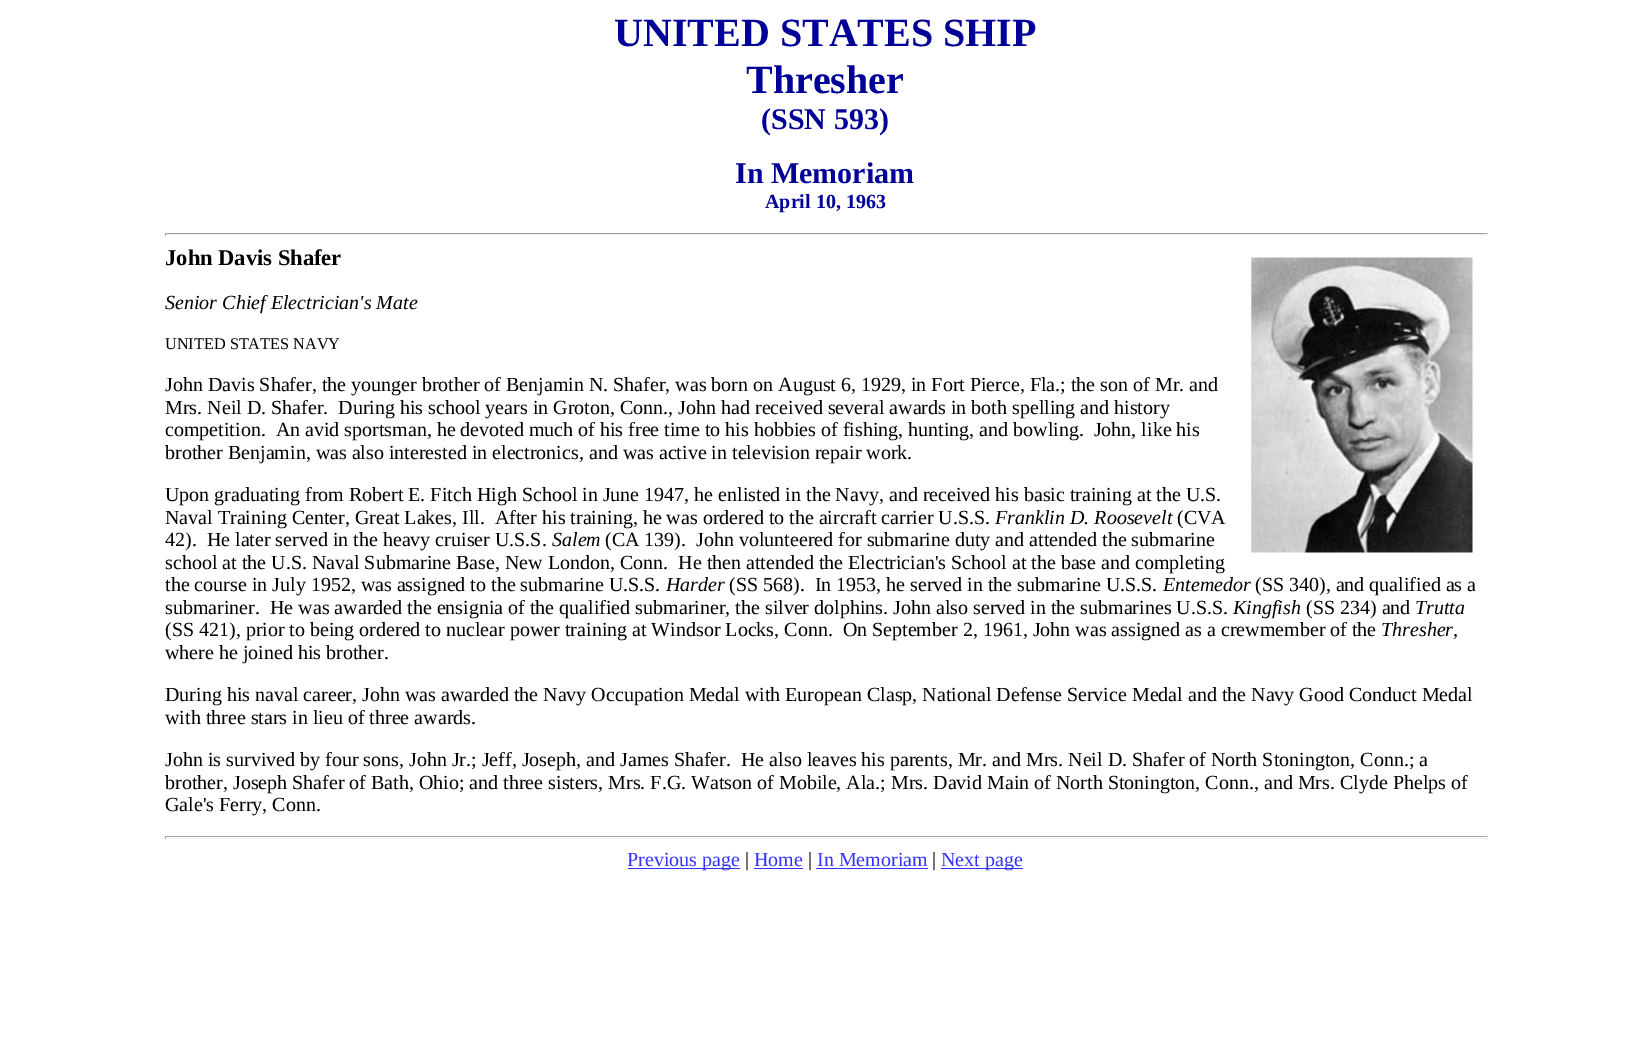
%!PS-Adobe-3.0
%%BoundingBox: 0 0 1649 1057
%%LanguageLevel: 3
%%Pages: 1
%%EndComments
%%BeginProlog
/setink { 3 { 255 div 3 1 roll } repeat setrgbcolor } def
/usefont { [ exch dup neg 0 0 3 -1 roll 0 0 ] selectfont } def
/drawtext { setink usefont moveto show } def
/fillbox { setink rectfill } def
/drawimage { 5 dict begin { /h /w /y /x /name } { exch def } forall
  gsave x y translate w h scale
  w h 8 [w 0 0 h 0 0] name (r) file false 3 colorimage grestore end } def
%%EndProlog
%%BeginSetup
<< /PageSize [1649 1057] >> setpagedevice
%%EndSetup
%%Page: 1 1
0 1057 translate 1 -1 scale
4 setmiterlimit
0 0 1649 1057 255 255 255 fillbox
(UNITED STATES SHIP) 614 46 /LiberationSerif-Bold 40 0 0 153 drawtext
(Thresher) 746 93 /LiberationSerif-Bold 40 0 0 153 drawtext
(\(SSN 593\)) 761 129 /LiberationSerif-Bold 30 0 0 153 drawtext
(In Memoriam) 735 183 /LiberationSerif-Bold 30 0 0 153 drawtext
(April 10, 1963) 765 208 /LiberationSerif-Bold 20 0 0 153 drawtext
165 233 1323 1 159 159 159 fillbox
1486 233 1 3 238 238 238 fillbox
165 234 1323 1 238 238 238 fillbox
165 233 1 3 159 159 159 fillbox
(John Davis Shafer) 165 265 /LiberationSerif-Bold 22.5 0 0 0 drawtext
(assets/img1.rgb) 1251 257 222 296 drawimage
(Senior Chief Electrician's Mate) 165 309 /LiberationSerif-Italic 20 0 0 0 drawtext
(UNITED STATES NAVY) 165 349 /LiberationSerif-Regular 16.25 0 0 0 drawtext
(John Davis Shafer, the younger brother of Benjamin N. Shafer, was born on August 6, 1929, in Fort Pierce, Fla.; the son of Mr. and) 165 391 /LiberationSerif-Regular 20 0 0 0 drawtext
(Mrs. Neil D. Shafer.  During his school years in Groton, Conn., John had received several awards in both spelling and history) 165 414 /LiberationSerif-Regular 20 0 0 0 drawtext
(competition.  An avid sportsman, he devoted much of his free time to his hobbies of fishing, hunting, and bowling.  John, like his) 165 436 /LiberationSerif-Regular 20 0 0 0 drawtext
(brother Benjamin, was also interested in electronics, and was active in television repair work.) 165 459 /LiberationSerif-Regular 20 0 0 0 drawtext
(Upon graduating from Robert E. Fitch High School in June 1947, he enlisted in the Navy, and received his basic training at the U.S.) 165 501 /LiberationSerif-Regular 20 0 0 0 drawtext
(Naval Training Center, Great Lakes, Ill.  After his training, he was ordered to the aircraft carrier U.S.S.) 165 524 /LiberationSerif-Regular 20 0 0 0 drawtext
(Franklin D. Roosevelt) 995 524 /LiberationSerif-Italic 20 0 0 0 drawtext
(\(CVA) 1177 524 /LiberationSerif-Regular 20 0 0 0 drawtext
(42\).  He later served in the heavy cruiser U.S.S.) 165 546 /LiberationSerif-Regular 20 0 0 0 drawtext
(Salem) 552 546 /LiberationSerif-Italic 20 0 0 0 drawtext
(\(CA 139\).  John volunteered for submarine duty and attended the submarine) 605 546 /LiberationSerif-Regular 20 0 0 0 drawtext
(school at the U.S. Naval Submarine Base, New London, Conn.  He then attended the Electrician's School at the base and completing) 165 569 /LiberationSerif-Regular 20 0 0 0 drawtext
(the course in July 1952, was assigned to the submarine U.S.S.) 165 591 /LiberationSerif-Regular 20 0 0 0 drawtext
(Harder) 666 591 /LiberationSerif-Italic 20 0 0 0 drawtext
(\(SS 568\).  In 1953, he served in the submarine U.S.S.) 729 591 /LiberationSerif-Regular 20 0 0 0 drawtext
(Entemedor) 1163 591 /LiberationSerif-Italic 20 0 0 0 drawtext
(\(SS 340\), and qualified as a) 1255 591 /LiberationSerif-Regular 20 0 0 0 drawtext
(submariner.  He was awarded the ensignia of the qualified submariner, the silver dolphins. John also served in the submarines U.S.S.) 165 614 /LiberationSerif-Regular 20 0 0 0 drawtext
(Kingfish) 1233 614 /LiberationSerif-Italic 20 0 0 0 drawtext
(\(SS 234\) and) 1306 614 /LiberationSerif-Regular 20 0 0 0 drawtext
(Trutta) 1415 614 /LiberationSerif-Italic 20 0 0 0 drawtext
(\(SS 421\), prior to being ordered to nuclear power training at Windsor Locks, Conn.  On September 2, 1961, John was assigned as a crewmember of the) 165 636 /LiberationSerif-Regular 20 0 0 0 drawtext
(Thresher,) 1381 636 /LiberationSerif-Italic 20 0 0 0 drawtext
(where he joined his brother.) 165 659 /LiberationSerif-Regular 20 0 0 0 drawtext
(During his naval career, John was awarded the Navy Occupation Medal with European Clasp, National Defense Service Medal and the Navy Good Conduct Medal) 165 701 /LiberationSerif-Regular 20 0 0 0 drawtext
(with three stars in lieu of three awards.) 165 724 /LiberationSerif-Regular 20 0 0 0 drawtext
(John is survived by four sons, John Jr.; Jeff, Joseph, and James Shafer.  He also leaves his parents, Mr. and Mrs. Neil D. Shafer of North Stonington, Conn.; a) 165 766 /LiberationSerif-Regular 20 0 0 0 drawtext
(brother, Joseph Shafer of Bath, Ohio; and three sisters, Mrs. F.G. Watson of Mobile, Ala.; Mrs. David Main of North Stonington, Conn., and Mrs. Clyde Phelps of) 165 789 /LiberationSerif-Regular 20 0 0 0 drawtext
(Gale's Ferry, Conn.) 165 811 /LiberationSerif-Regular 20 0 0 0 drawtext
165 836 1323 1 159 159 159 fillbox
1486 836 1 3 238 238 238 fillbox
165 838 1323 1 238 238 238 fillbox
165 836 1 3 159 159 159 fillbox
628 868 112 1 51 51 255 fillbox
(Previous page) 627 866 /LiberationSerif-Regular 20 51 51 255 drawtext
(|) 745 866 /LiberationSerif-Regular 20 0 0 0 drawtext
(Home) 754 866 /LiberationSerif-Regular 20 51 51 255 drawtext
754 868 49 1 51 51 255 fillbox
(|) 808 866 /LiberationSerif-Regular 20 0 0 0 drawtext
(In Memoriam) 817 866 /LiberationSerif-Regular 20 51 51 255 drawtext
816 868 112 1 51 51 255 fillbox
(|) 932 866 /LiberationSerif-Regular 20 0 0 0 drawtext
941 868 82 1 51 51 255 fillbox
(Next page) 941 866 /LiberationSerif-Regular 20 51 51 255 drawtext
showpage
%%EOF
